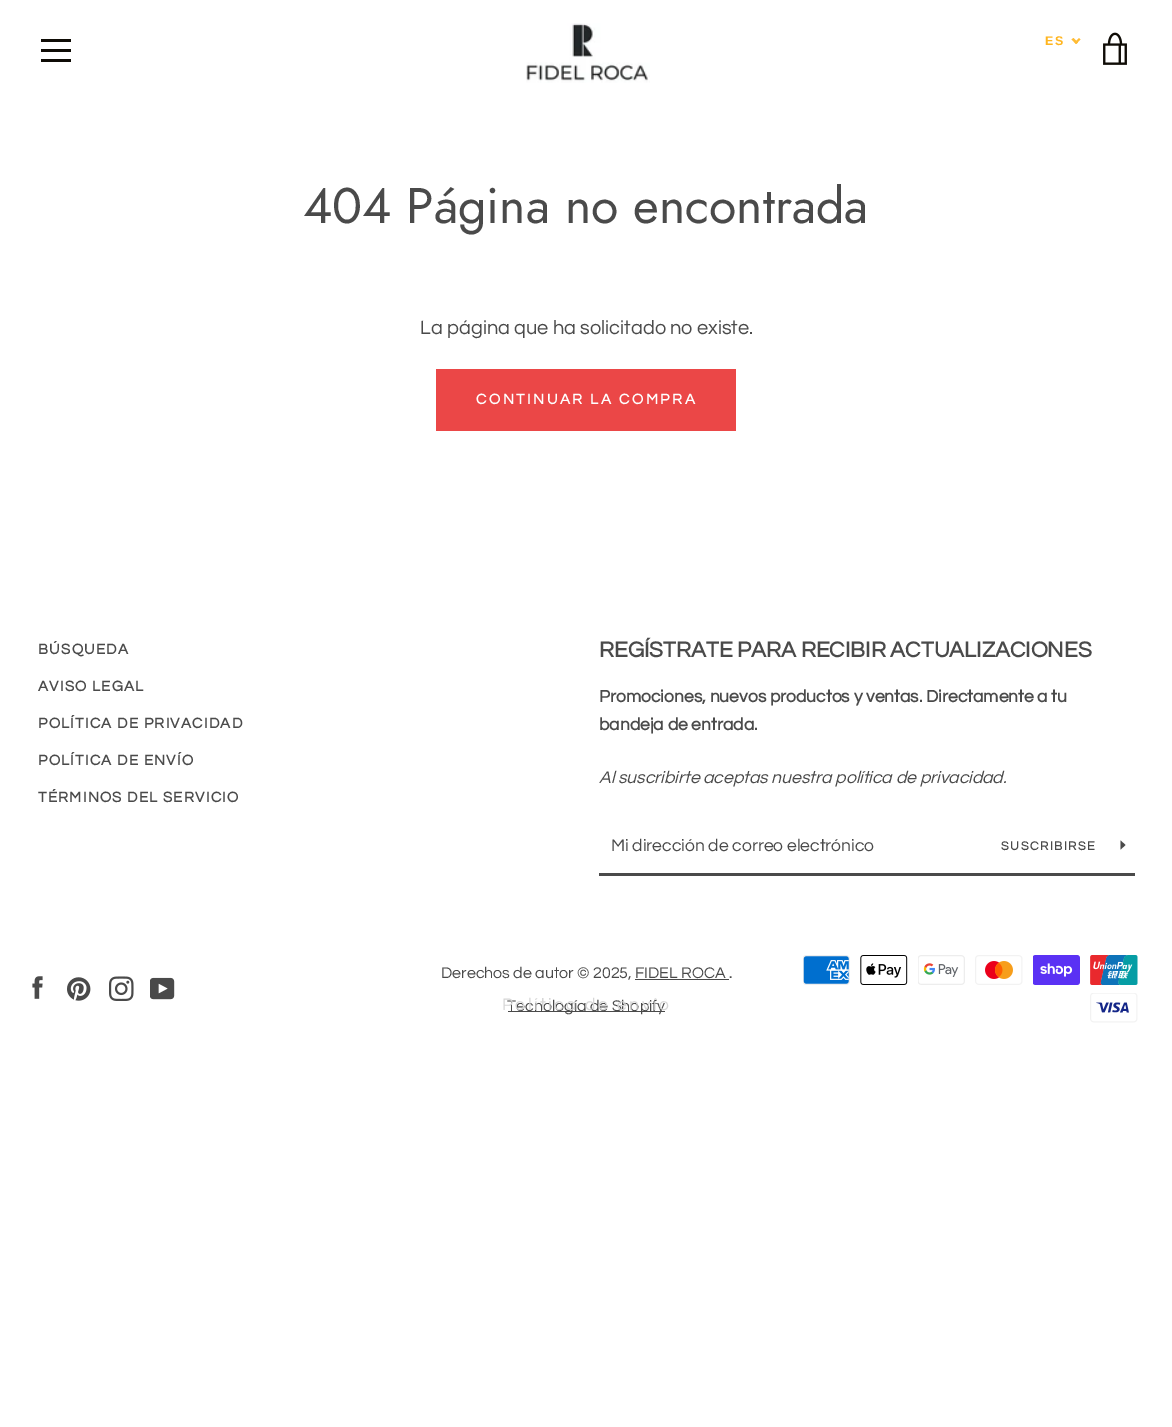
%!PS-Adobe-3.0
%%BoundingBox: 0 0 1172 1427
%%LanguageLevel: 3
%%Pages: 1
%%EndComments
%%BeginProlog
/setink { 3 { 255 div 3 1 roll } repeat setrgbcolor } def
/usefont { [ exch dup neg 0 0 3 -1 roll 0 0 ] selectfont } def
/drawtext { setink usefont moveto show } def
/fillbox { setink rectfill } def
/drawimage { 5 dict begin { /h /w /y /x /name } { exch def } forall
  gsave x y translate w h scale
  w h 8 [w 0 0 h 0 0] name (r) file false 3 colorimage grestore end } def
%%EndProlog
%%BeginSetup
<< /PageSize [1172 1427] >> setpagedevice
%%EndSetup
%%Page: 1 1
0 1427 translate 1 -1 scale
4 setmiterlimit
0 0 1172 1427 255 255 255 fillbox
/LiberationSans-Bold 12.5 usefont
255 181 30 setink
1045 45 moveto 1.25 0 (ES) ashow
255 188 53 setink
1079 38 moveto 1080.5 39.5 lineto 1076 44 lineto 1074.5 42.5 lineto closepath fill
1073.5 38 moveto 1078 42.5 lineto 1076 44 lineto 1071.5 39.5 lineto closepath fill
(404 Página no encontrada) 303 223 /Jost-Regular 50 74 74 74 drawtext
(La página que ha solicitado no existe.) 420 334 /Questrial-Regular 20 74 74 74 drawtext
436 369 300 62 235 71 71 fillbox
/Questrial-Bold 15 usefont
255 255 255 setink
476 404 moveto 2.5 0 (CONTINUAR LA COMPRA) ashow
74 74 74 setink
38 654 moveto 1.25 0 (BÚSQUEDA) ashow
38 691 moveto 1.25 0 (AVISO LEGAL) ashow
38 728 moveto 1.25 0 (POLÍTICA DE PRIVACIDAD) ashow
38 765 moveto 1.25 0 (POLÍTICA DE ENVÍO) ashow
38 802 moveto 1.25 0 (TÉRMINOS DEL SERVICIO) ashow
(REGÍSTRATE PARA RECIBIR ACTUALIZACIONES) 599 657 /Questrial-Bold 22.5 74 74 74 drawtext
(Promociones, nuevos productos y ventas. Directamente a tu) 599 702 /Questrial-Bold 17.5 74 74 74 drawtext
(bandeja de entrada.) 599 730 /Questrial-Bold 17.5 74 74 74 drawtext
(Al suscribirte aceptas nuestra política de privacidad.) 599 783 /Questrial-Italic 17.5 74 74 74 drawtext
599 873 536 3 74 74 74 fillbox
(Mi dirección de correo electrónico) 611 851 /Questrial-Regular 17.5 74 74 74 drawtext
/Questrial-Bold 12.5 usefont
1001 850 moveto 1.5 0 (SUSCRIBIRSE) ashow
1125.5 845 moveto 1120.5 849.5 lineto 1120.5 840.5 lineto closepath fill
(assets/img1.rgb) 32 976 11 23 drawimage
(assets/img2.rgb) 67 977 24 24 drawimage
(assets/img3.rgb) 109 976 25 25 drawimage
(assets/img4.rgb) 150 977 25 23 drawimage
(Derechos de autor © 2025, FIDEL ROCA .) 441 978 /Questrial-Regular 16 74 74 74 drawtext
635 979 94 1 74 74 74 fillbox
508 1011 157 1 74 74 74 fillbox
(Tecnología de Shopify) 507 1011 /Questrial-Regular 16 74 74 74 drawtext
(assets/img5.rgb) 803 955 47 30 drawimage
(assets/img6.rgb) 860 955 48 30 drawimage
(assets/img7.rgb) 918 955 47 30 drawimage
(assets/img8.rgb) 975 955 48 30 drawimage
(assets/img9.rgb) 1033 955 47 30 drawimage
(assets/img10.rgb) 1090 955 48 30 drawimage
(assets/img11.rgb) 1090 993 48 30 drawimage
(assets/img12.rgb) 526 23 124 60 drawimage
(assets/img13.rgb) 1103 32 24 33 drawimage
41 39 30 3 15 12 6 fillbox
41 49 30 3 15 12 6 fillbox
41 59 30 3 15 12 6 fillbox
/Questrial-Regular 17.5 usefont
214 214 214 setink
502 1010 moveto 2.5 0 (Política de envío) ashow
showpage
%%EOF
